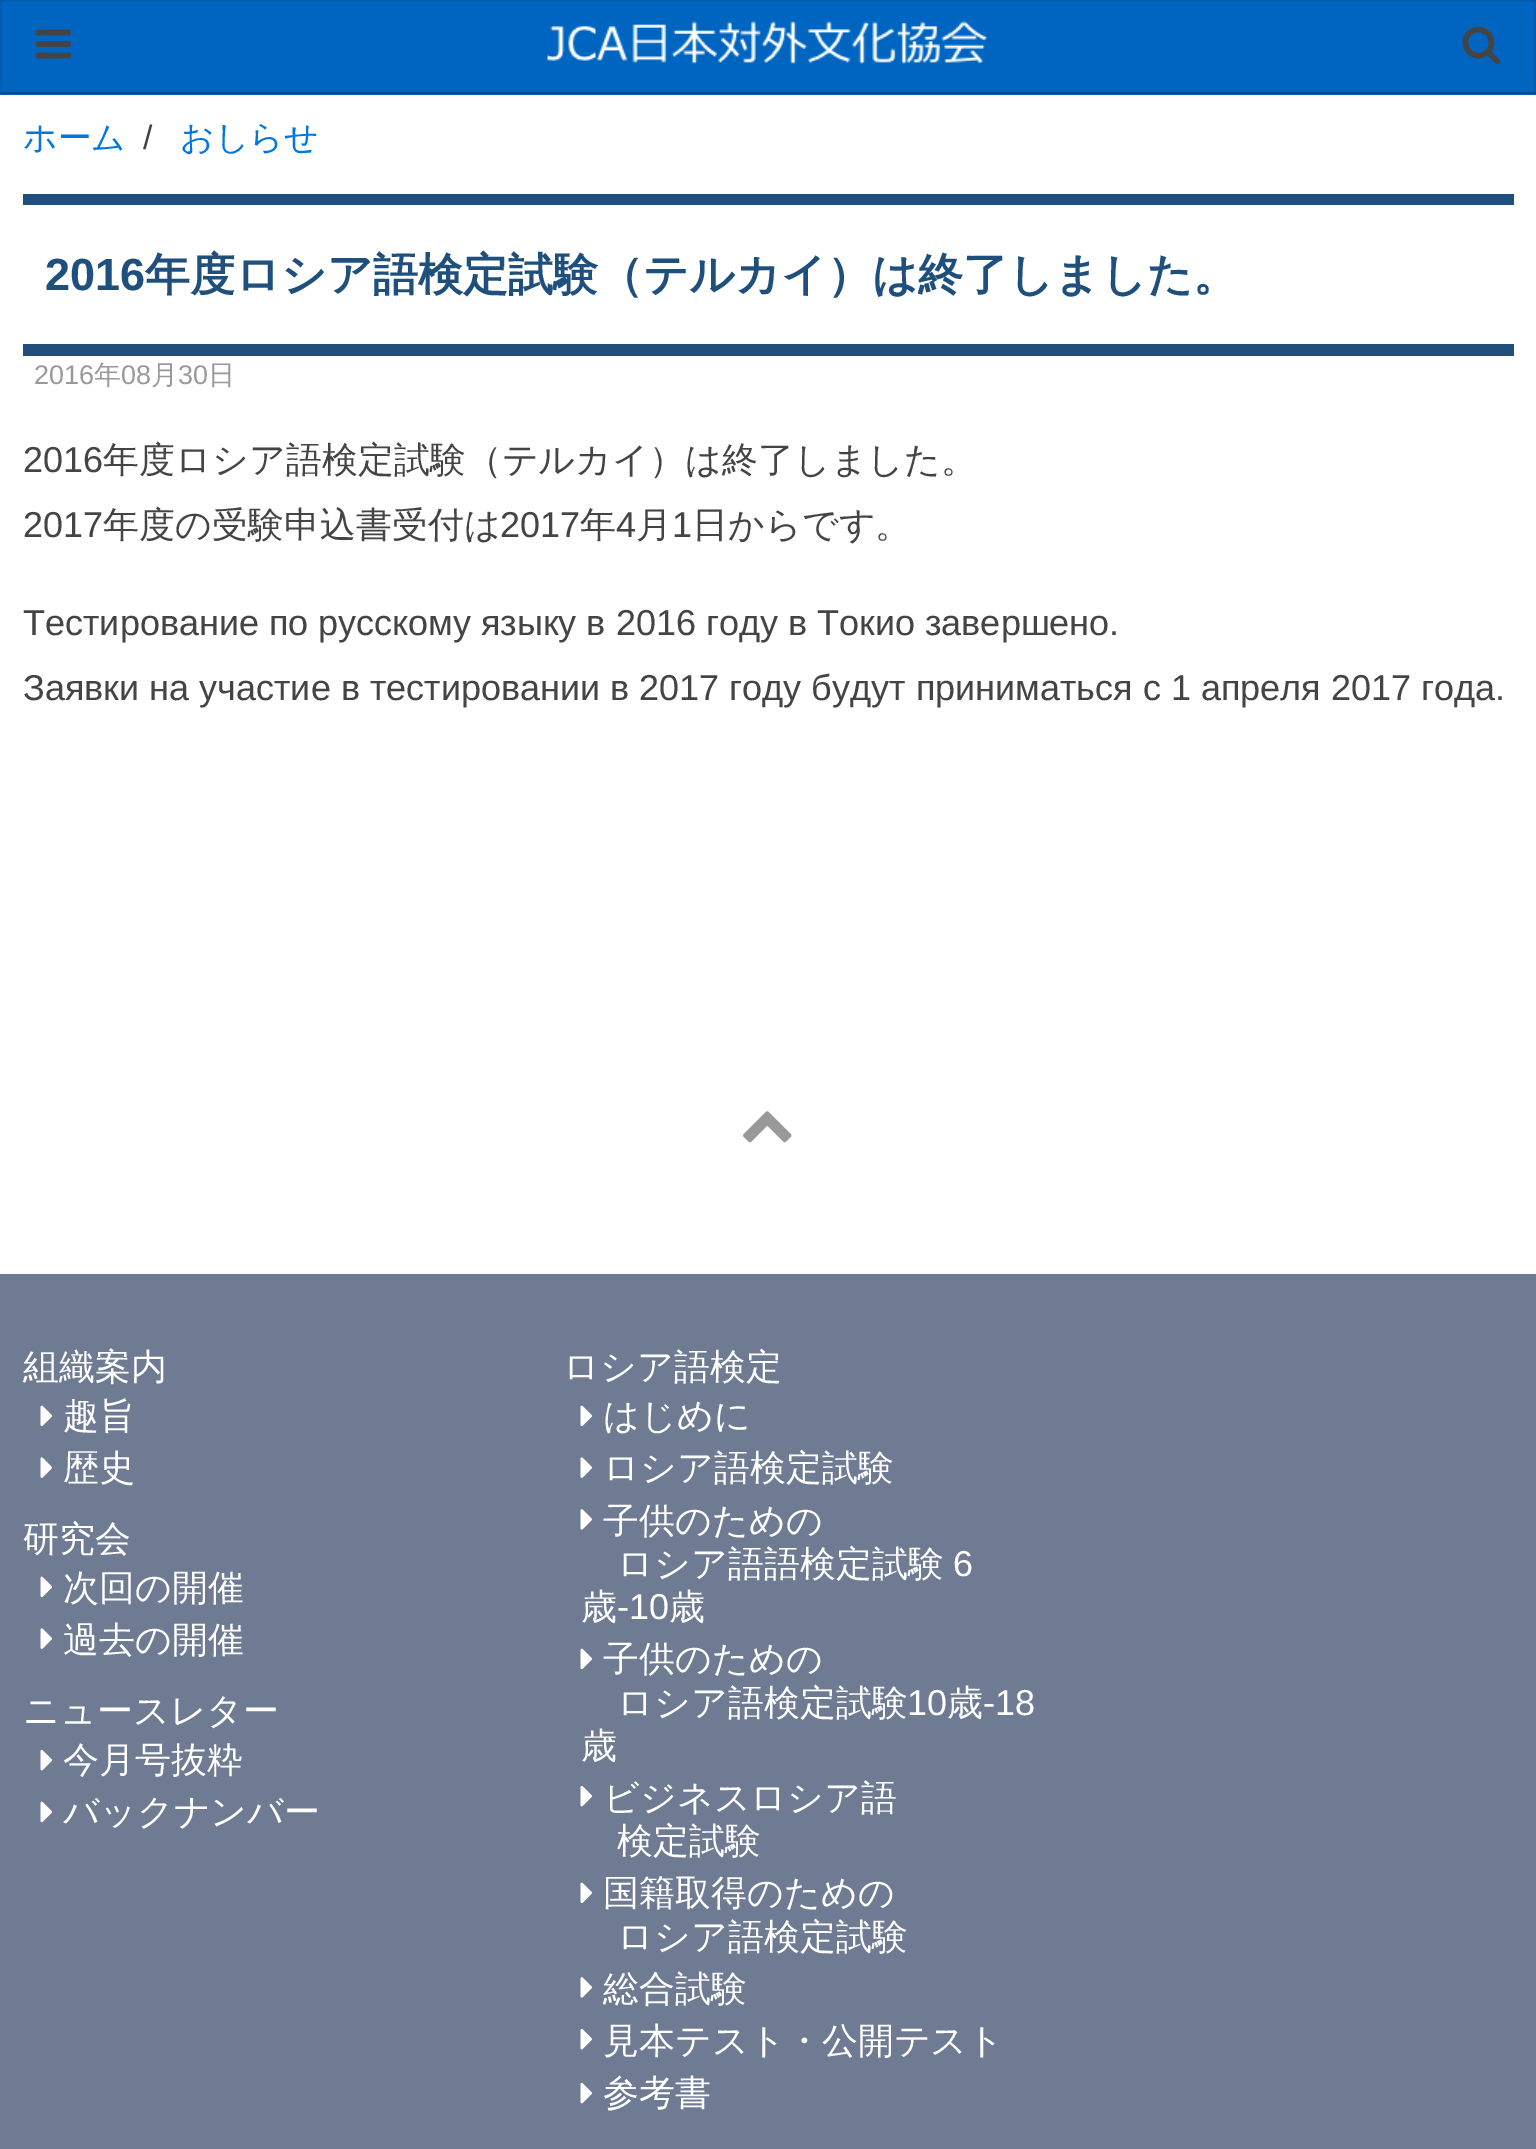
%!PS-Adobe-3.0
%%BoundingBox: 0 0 1536 2149
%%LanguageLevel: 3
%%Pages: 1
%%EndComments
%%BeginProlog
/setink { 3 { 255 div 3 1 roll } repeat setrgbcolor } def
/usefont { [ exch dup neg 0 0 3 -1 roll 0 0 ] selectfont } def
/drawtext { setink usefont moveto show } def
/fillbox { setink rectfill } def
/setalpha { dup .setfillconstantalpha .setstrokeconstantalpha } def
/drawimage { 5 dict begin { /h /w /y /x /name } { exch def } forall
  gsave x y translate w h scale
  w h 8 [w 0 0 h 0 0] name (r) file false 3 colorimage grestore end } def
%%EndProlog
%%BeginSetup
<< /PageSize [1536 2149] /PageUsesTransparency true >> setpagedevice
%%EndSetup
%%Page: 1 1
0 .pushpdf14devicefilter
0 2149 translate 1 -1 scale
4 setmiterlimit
0 0 1536 2149 255 255 255 fillbox
0 0 1536 95 0 101 192 fillbox
0 91 173 setink
0 0 moveto 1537 0 lineto 1534 2 lineto 2 2 lineto closepath fill
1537 0 moveto 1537 94 lineto 1534 92 lineto 1534 2 lineto closepath fill
0.3 setalpha
0 0 0 setink
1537 94 moveto 0 94 lineto 2 92 lineto 1534 92 lineto closepath fill
0.1 setalpha
0 94 moveto 0 0 lineto 2 2 lineto 2 92 lineto closepath fill
1 setalpha
(assets/img1.rgb) 36 29 35 30 drawimage
(assets/img2.rgb) 547 21 440 43 drawimage
(assets/img3.rgb) 1462 26 39 39 drawimage
(ホーム) 23 149 /WenQuanYiZenHei-Medium 33.75 0 119 221 drawtext
(/) 143 149 /LiberationSans-Regular 33.75 68 68 68 drawtext
(おしらせ) 180 149 /WenQuanYiZenHei-Medium 33.75 0 119 221 drawtext
23 194 1491 11 31 80 125 fillbox
23 344 1491 12 31 80 125 fillbox
(2016) 45 290 /LiberationSans-Bold 45 31 80 125 drawtext
(年度ロシア語検定試験（テルカイ）は終了しました。) 145 290 /WenQuanYiZenHei-Bold 45 31 80 125 drawtext
(2016) 34 384 /LiberationSans-Regular 27 153 153 153 drawtext
(年) 94 384 /WenQuanYiZenHei-Medium 27 153 153 153 drawtext
(08) 121 384 /LiberationSans-Regular 27 153 153 153 drawtext
(月) 151 384 /WenQuanYiZenHei-Medium 27 153 153 153 drawtext
(30) 178 384 /LiberationSans-Regular 27 153 153 153 drawtext
(日) 208 384 /WenQuanYiZenHei-Medium 27 153 153 153 drawtext
(2016) 23 472 /LiberationSans-Regular 36 68 68 68 drawtext
(年度ロシア語検定試験（テルカイ）は終了しました。) 103 472 /WenQuanYiZenHei-Medium 36 68 68 68 drawtext
(2017) 23 537 /LiberationSans-Regular 36 68 68 68 drawtext
(年度の受験申込書受付は) 103 537 /WenQuanYiZenHei-Medium 36 68 68 68 drawtext
(2017) 500 537 /LiberationSans-Regular 36 68 68 68 drawtext
(年) 580 537 /WenQuanYiZenHei-Medium 36 68 68 68 drawtext
(4) 616 537 /LiberationSans-Regular 36 68 68 68 drawtext
(月) 636 537 /WenQuanYiZenHei-Medium 36 68 68 68 drawtext
(1) 672 537 /LiberationSans-Regular 36 68 68 68 drawtext
(日からです。) 692 537 /WenQuanYiZenHei-Medium 36 68 68 68 drawtext
(Тестирование по русскому языку в 2016 году в Токио завершено.) 23 635 /LiberationSans-Regular 36 68 68 68 drawtext
(Заявки на участие в тестировании в 2017 году будут приниматься с 1 апреля 2017 года.) 23 700 /LiberationSans-Regular 36 68 68 68 drawtext
(assets/img4.rgb) 743 1111 49 32 drawimage
0 1274 1536 875 110 123 147 fillbox
(組織案内) 23 1379 /WenQuanYiZenHei-Medium 36 255 255 255 drawtext
(assets/img5.rgb) 40 1405 12 22 drawimage
(趣旨) 63 1428 /WenQuanYiZenHei-Medium 36 255 255 255 drawtext
(assets/img6.rgb) 40 1457 12 21 drawimage
(歴史) 63 1480 /WenQuanYiZenHei-Medium 36 255 255 255 drawtext
(研究会) 23 1551 /WenQuanYiZenHei-Medium 36 255 255 255 drawtext
(assets/img5.rgb) 40 1576 12 22 drawimage
(次回の開催) 63 1600 /WenQuanYiZenHei-Medium 36 255 255 255 drawtext
(assets/img6.rgb) 40 1628 12 21 drawimage
(過去の開催) 63 1652 /WenQuanYiZenHei-Medium 36 255 255 255 drawtext
(ニュースレター) 23 1723 /WenQuanYiZenHei-Medium 36 255 255 255 drawtext
(assets/img7.rgb) 40 1749 12 22 drawimage
(今月号抜粋) 63 1772 /WenQuanYiZenHei-Medium 36 255 255 255 drawtext
(assets/img5.rgb) 40 1801 12 22 drawimage
(バックナンバー) 63 1824 /WenQuanYiZenHei-Medium 36 255 255 255 drawtext
(ロシア語検定) 563 1379 /WenQuanYiZenHei-Medium 36 255 255 255 drawtext
(assets/img5.rgb) 580 1405 12 22 drawimage
(はじめに) 603 1428 /WenQuanYiZenHei-Medium 36 255 255 255 drawtext
(assets/img6.rgb) 580 1457 12 21 drawimage
(ロシア語検定試験) 603 1480 /WenQuanYiZenHei-Medium 36 255 255 255 drawtext
(assets/img8.rgb) 580 1509 12 21 drawimage
(子供のための) 603 1533 /WenQuanYiZenHei-Medium 36 255 255 255 drawtext
(ロシア語語検定試験) 617 1576 /WenQuanYiZenHei-Medium 36 255 255 255 drawtext
(6) 953 1576 /LiberationSans-Regular 36 255 255 255 drawtext
(歳) 581 1619 /WenQuanYiZenHei-Medium 36 255 255 255 drawtext
(-10) 617 1619 /LiberationSans-Regular 36 255 255 255 drawtext
(歳) 669 1619 /WenQuanYiZenHei-Medium 36 255 255 255 drawtext
(assets/img5.rgb) 580 1648 12 22 drawimage
(子供のための) 603 1671 /WenQuanYiZenHei-Medium 36 255 255 255 drawtext
(ロシア語検定試験) 617 1715 /WenQuanYiZenHei-Medium 36 255 255 255 drawtext
(10) 907 1715 /LiberationSans-Regular 36 255 255 255 drawtext
(歳) 947 1715 /WenQuanYiZenHei-Medium 36 255 255 255 drawtext
(-18) 983 1715 /LiberationSans-Regular 36 255 255 255 drawtext
(歳) 581 1758 /WenQuanYiZenHei-Medium 36 255 255 255 drawtext
(assets/img7.rgb) 580 1785 12 22 drawimage
(ビジネスロシア語) 603 1810 /WenQuanYiZenHei-Medium 36 255 255 255 drawtext
(検定試験) 617 1853 /WenQuanYiZenHei-Medium 36 255 255 255 drawtext
(assets/img5.rgb) 580 1882 12 22 drawimage
(国籍取得のための) 603 1905 /WenQuanYiZenHei-Medium 36 255 255 255 drawtext
(ロシア語検定試験) 617 1949 /WenQuanYiZenHei-Medium 36 255 255 255 drawtext
(assets/img8.rgb) 580 1977 12 21 drawimage
(総合試験) 603 2001 /WenQuanYiZenHei-Medium 36 255 255 255 drawtext
(assets/img7.rgb) 580 2028 12 22 drawimage
(見本テスト・公開テスト) 603 2053 /WenQuanYiZenHei-Medium 36 255 255 255 drawtext
(assets/img7.rgb) 580 2082 12 22 drawimage
(参考書) 603 2105 /WenQuanYiZenHei-Medium 36 255 255 255 drawtext
.poppdf14devicefilter showpage
%%EOF
